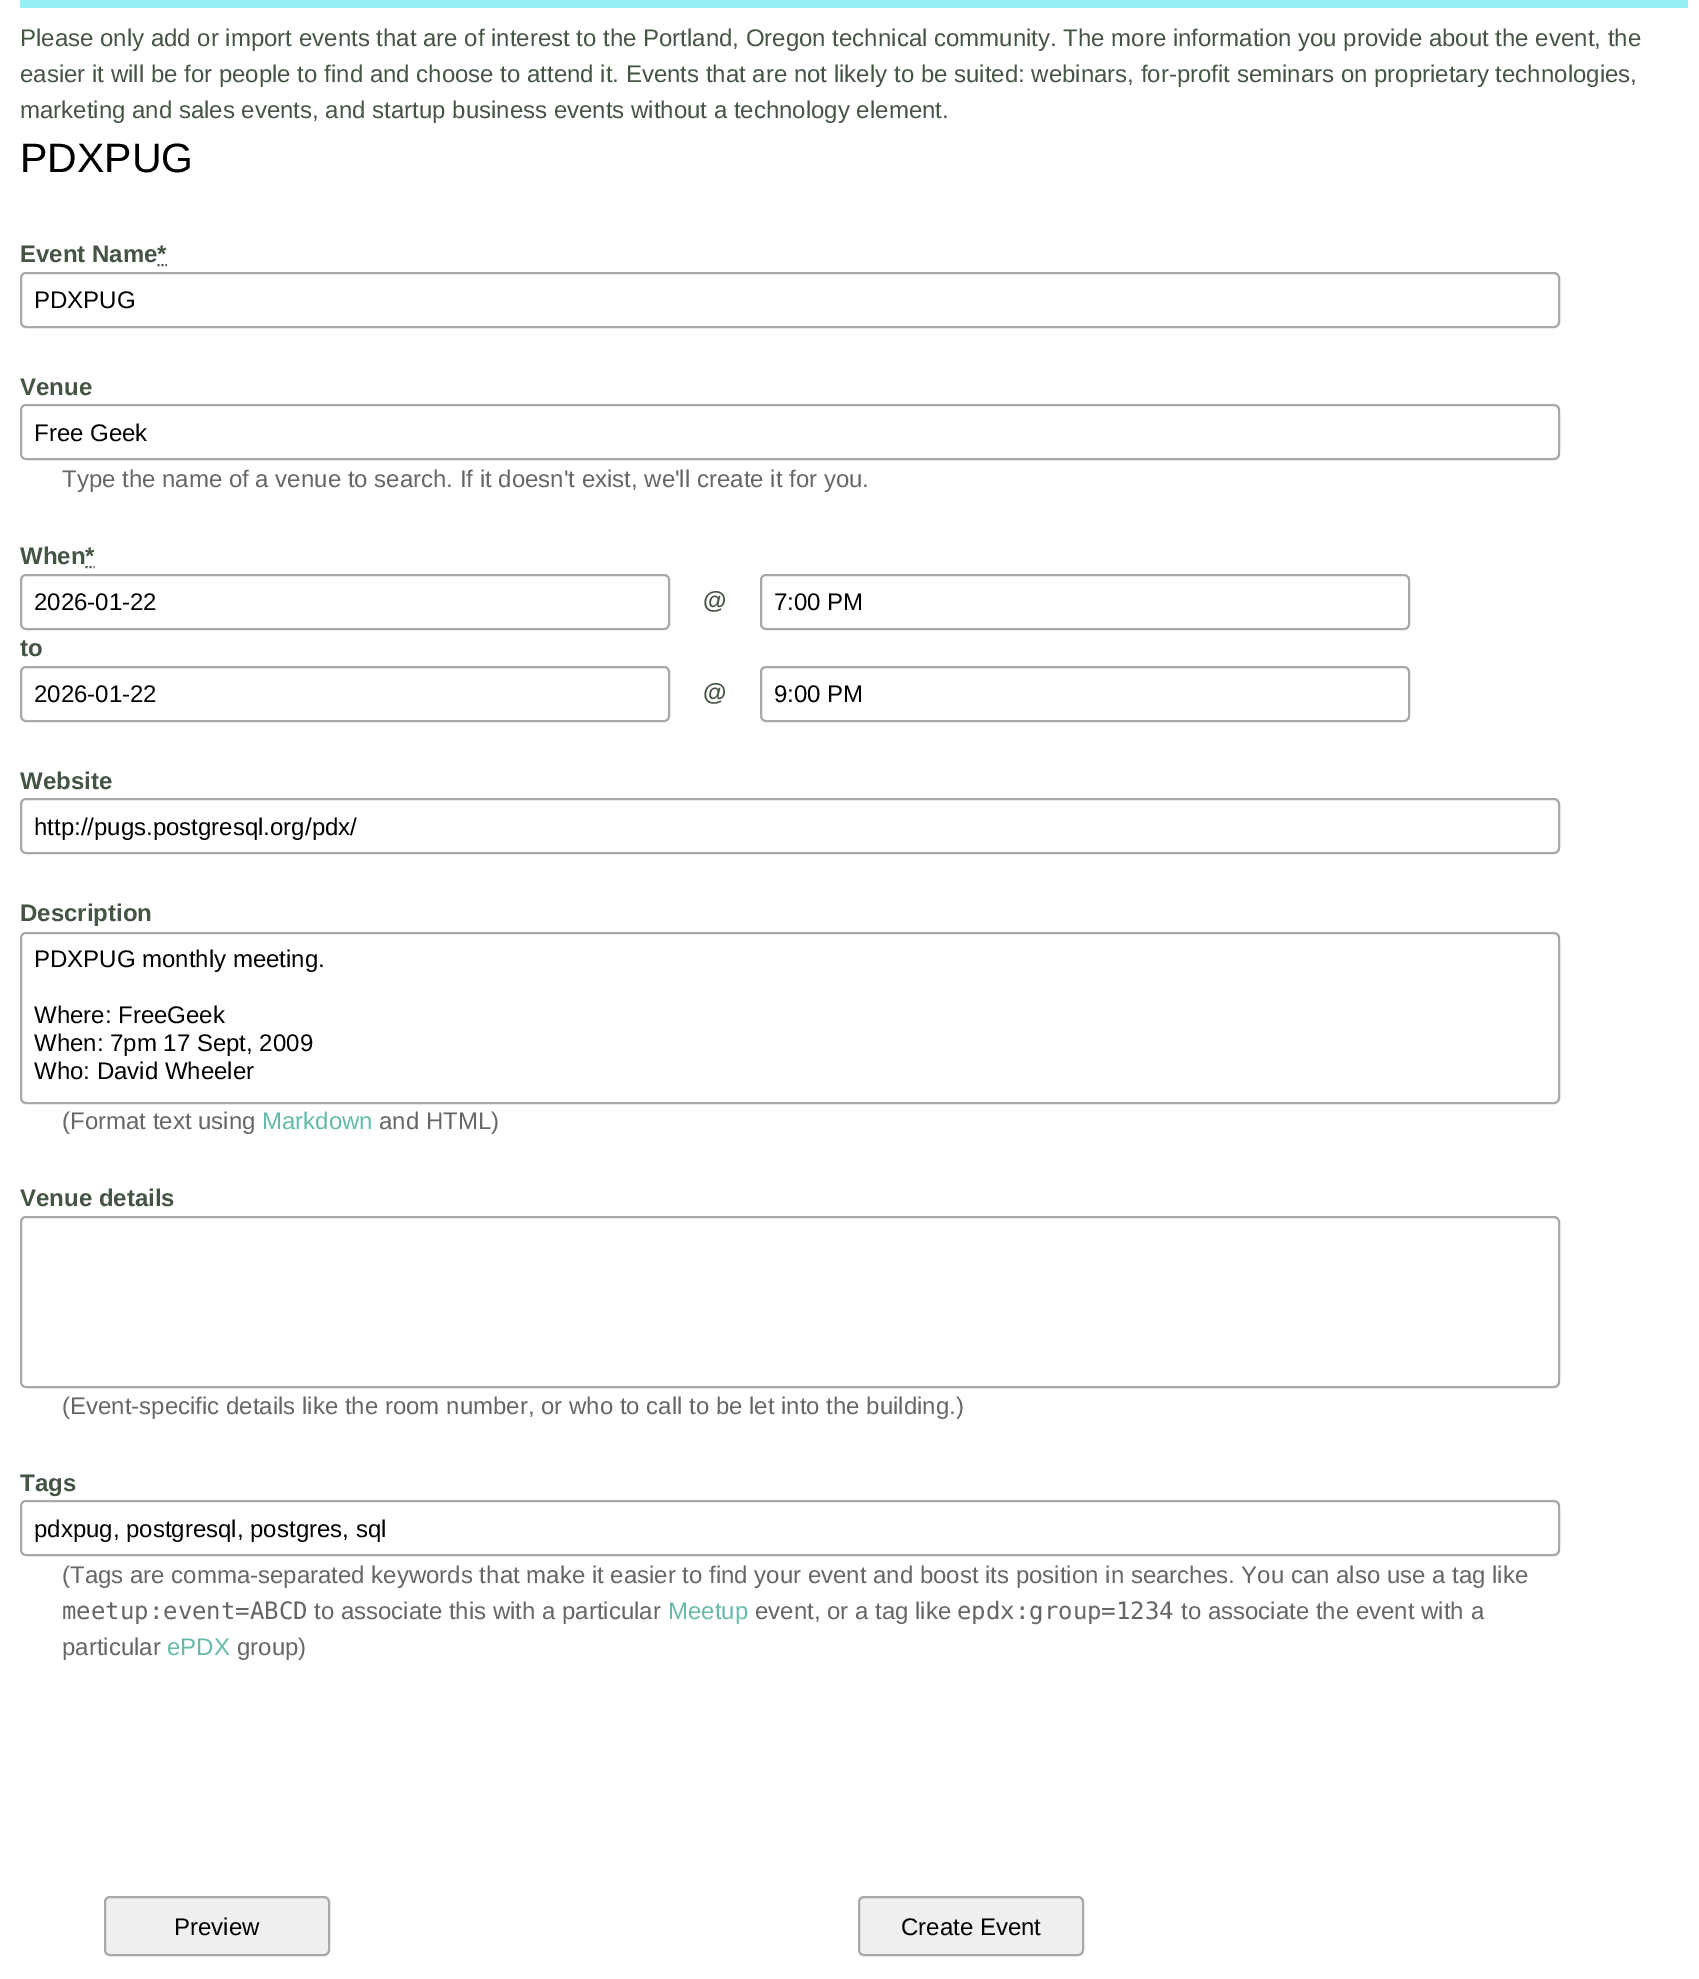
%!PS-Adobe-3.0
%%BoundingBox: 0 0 1699 1979
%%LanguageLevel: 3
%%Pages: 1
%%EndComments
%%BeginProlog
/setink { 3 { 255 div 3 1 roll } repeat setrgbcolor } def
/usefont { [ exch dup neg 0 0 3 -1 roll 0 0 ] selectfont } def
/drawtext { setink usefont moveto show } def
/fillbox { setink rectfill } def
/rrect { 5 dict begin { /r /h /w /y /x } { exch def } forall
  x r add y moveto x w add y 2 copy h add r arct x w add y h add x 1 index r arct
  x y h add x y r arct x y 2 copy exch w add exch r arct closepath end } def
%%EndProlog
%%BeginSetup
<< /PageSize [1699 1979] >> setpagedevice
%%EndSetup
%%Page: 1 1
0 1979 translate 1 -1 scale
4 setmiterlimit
0 0 1699 1979 255 255 255 fillbox
20 0 1668 8 152 240 247 fillbox
(Please only add or import events that are of interest to the Portland, Oregon technical community. The more information you provide about the event, the) 20 46 /LiberationSans-Regular 24 68 85 68 drawtext
(easier it will be for people to find and choose to attend it. Events that are not likely to be suited: webinars, for-profit seminars on proprietary technologies,) 20 82 /LiberationSans-Regular 24 68 85 68 drawtext
(marketing and sales events, and startup business events without a technology element.) 20 118 /LiberationSans-Regular 24 68 85 68 drawtext
(PDXPUG) 20 172 /LiberationSans-Regular 41 0 0 0 drawtext
(Event Name*) 20 262 /LiberationSans-Bold 24 68 85 68 drawtext
2 setlinewidth
157.5 265 moveto 159.5 265 lineto 161.5 265 moveto 163.5 265 lineto 165.5 265 moveto 167 265 lineto stroke
169 169 169 setink
21 273 1538 54 5 rrect stroke
(PDXPUG) 34 308 /LiberationSans-Regular 24 0 0 0 drawtext
(Venue) 20 395 /LiberationSans-Bold 24 68 85 68 drawtext
169 169 169 setink
21 405 1538 54 5 rrect stroke
(Free Geek) 34 441 /LiberationSans-Regular 24 0 0 0 drawtext
(Type the name of a venue to search. If it doesn't exist, we'll create it for you.) 62 487 /LiberationSans-Regular 24 102 102 102 drawtext
(When*) 20 564 /LiberationSans-Bold 24 68 85 68 drawtext
85.5 567 moveto 87.5 567 lineto 89.5 567 moveto 91.5 567 lineto 93.5 567 moveto 94.5 567 lineto stroke
169 169 169 setink
21 575 648 54 5 rrect stroke
(2026-01-22) 34 610 /LiberationSans-Regular 24 0 0 0 drawtext
(@) 703 608 /LiberationSans-Bold 24 68 85 68 drawtext
169 169 169 setink
761 575 648 54 5 rrect stroke
(7:00 PM) 774 610 /LiberationSans-Regular 24 0 0 0 drawtext
(to) 20 656 /LiberationSans-Bold 24 68 85 68 drawtext
169 169 169 setink
21 667 648 54 5 rrect stroke
(2026-01-22) 34 702 /LiberationSans-Regular 24 0 0 0 drawtext
(@) 703 700 /LiberationSans-Bold 24 68 85 68 drawtext
169 169 169 setink
761 667 648 54 5 rrect stroke
(9:00 PM) 774 702 /LiberationSans-Regular 24 0 0 0 drawtext
(Website) 20 789 /LiberationSans-Bold 24 68 85 68 drawtext
169 169 169 setink
21 799 1538 54 5 rrect stroke
(http://pugs.postgresql.org/pdx/) 34 835 /LiberationSans-Regular 24 0 0 0 drawtext
(Description) 20 921 /LiberationSans-Bold 24 68 85 68 drawtext
169 169 169 setink
21 933 1538 170 5 rrect stroke
(PDXPUG monthly meeting.) 34 967 /LiberationSans-Regular 24 0 0 0 drawtext
(Where: FreeGeek) 34 1023 /LiberationSans-Regular 24 0 0 0 drawtext
(When: 7pm 17 Sept, 2009) 34 1051 /LiberationSans-Regular 24 0 0 0 drawtext
(Who: David Wheeler) 34 1079 /LiberationSans-Regular 24 0 0 0 drawtext
(\(Format text using) 62 1129 /LiberationSans-Regular 24 102 102 102 drawtext
(Markdown) 262 1129 /LiberationSans-Regular 24 102 186 169 drawtext
(and HTML\)) 379 1129 /LiberationSans-Regular 24 102 102 102 drawtext
(Venue details) 20 1206 /LiberationSans-Bold 24 68 85 68 drawtext
169 169 169 setink
21 1217 1538 170 5 rrect stroke
(\(Event-specific details like the room number, or who to call to be let into the building.\)) 62 1414 /LiberationSans-Regular 24 102 102 102 drawtext
(Tags) 20 1491 /LiberationSans-Bold 24 68 85 68 drawtext
169 169 169 setink
21 1501 1538 54 5 rrect stroke
(pdxpug, postgresql, postgres, sql) 34 1537 /LiberationSans-Regular 24 0 0 0 drawtext
(\(Tags are comma-separated keywords that make it easier to find your event and boost its position in searches. You can also use a tag like) 62 1583 /LiberationSans-Regular 24 102 102 102 drawtext
(meetup:event=ABCD) 62 1619 /DejaVuSansMono-Regular 24 102 102 102 drawtext
(to associate this with a particular) 314 1619 /LiberationSans-Regular 24 102 102 102 drawtext
(Meetup) 668 1619 /LiberationSans-Regular 24 102 186 169 drawtext
(event, or a tag like) 755 1619 /LiberationSans-Regular 24 102 102 102 drawtext
(epdx:group=1234) 957 1619 /DejaVuSansMono-Regular 24 102 102 102 drawtext
(to associate the event with a) 1181 1619 /LiberationSans-Regular 24 102 102 102 drawtext
(particular) 62 1655 /LiberationSans-Regular 24 102 102 102 drawtext
(ePDX) 167 1655 /LiberationSans-Regular 24 102 186 169 drawtext
(group\)) 237 1655 /LiberationSans-Regular 24 102 102 102 drawtext
239 239 239 setink
105 1897 224 58 5 rrect gsave fill grestore
169 169 169 setink
stroke
(Preview) 174 1935 /LiberationSans-Regular 24 0 0 0 drawtext
239 239 239 setink
859 1897 224 58 5 rrect gsave fill grestore
169 169 169 setink
stroke
(Create Event) 901 1935 /LiberationSans-Regular 24 0 0 0 drawtext
showpage
%%EOF
